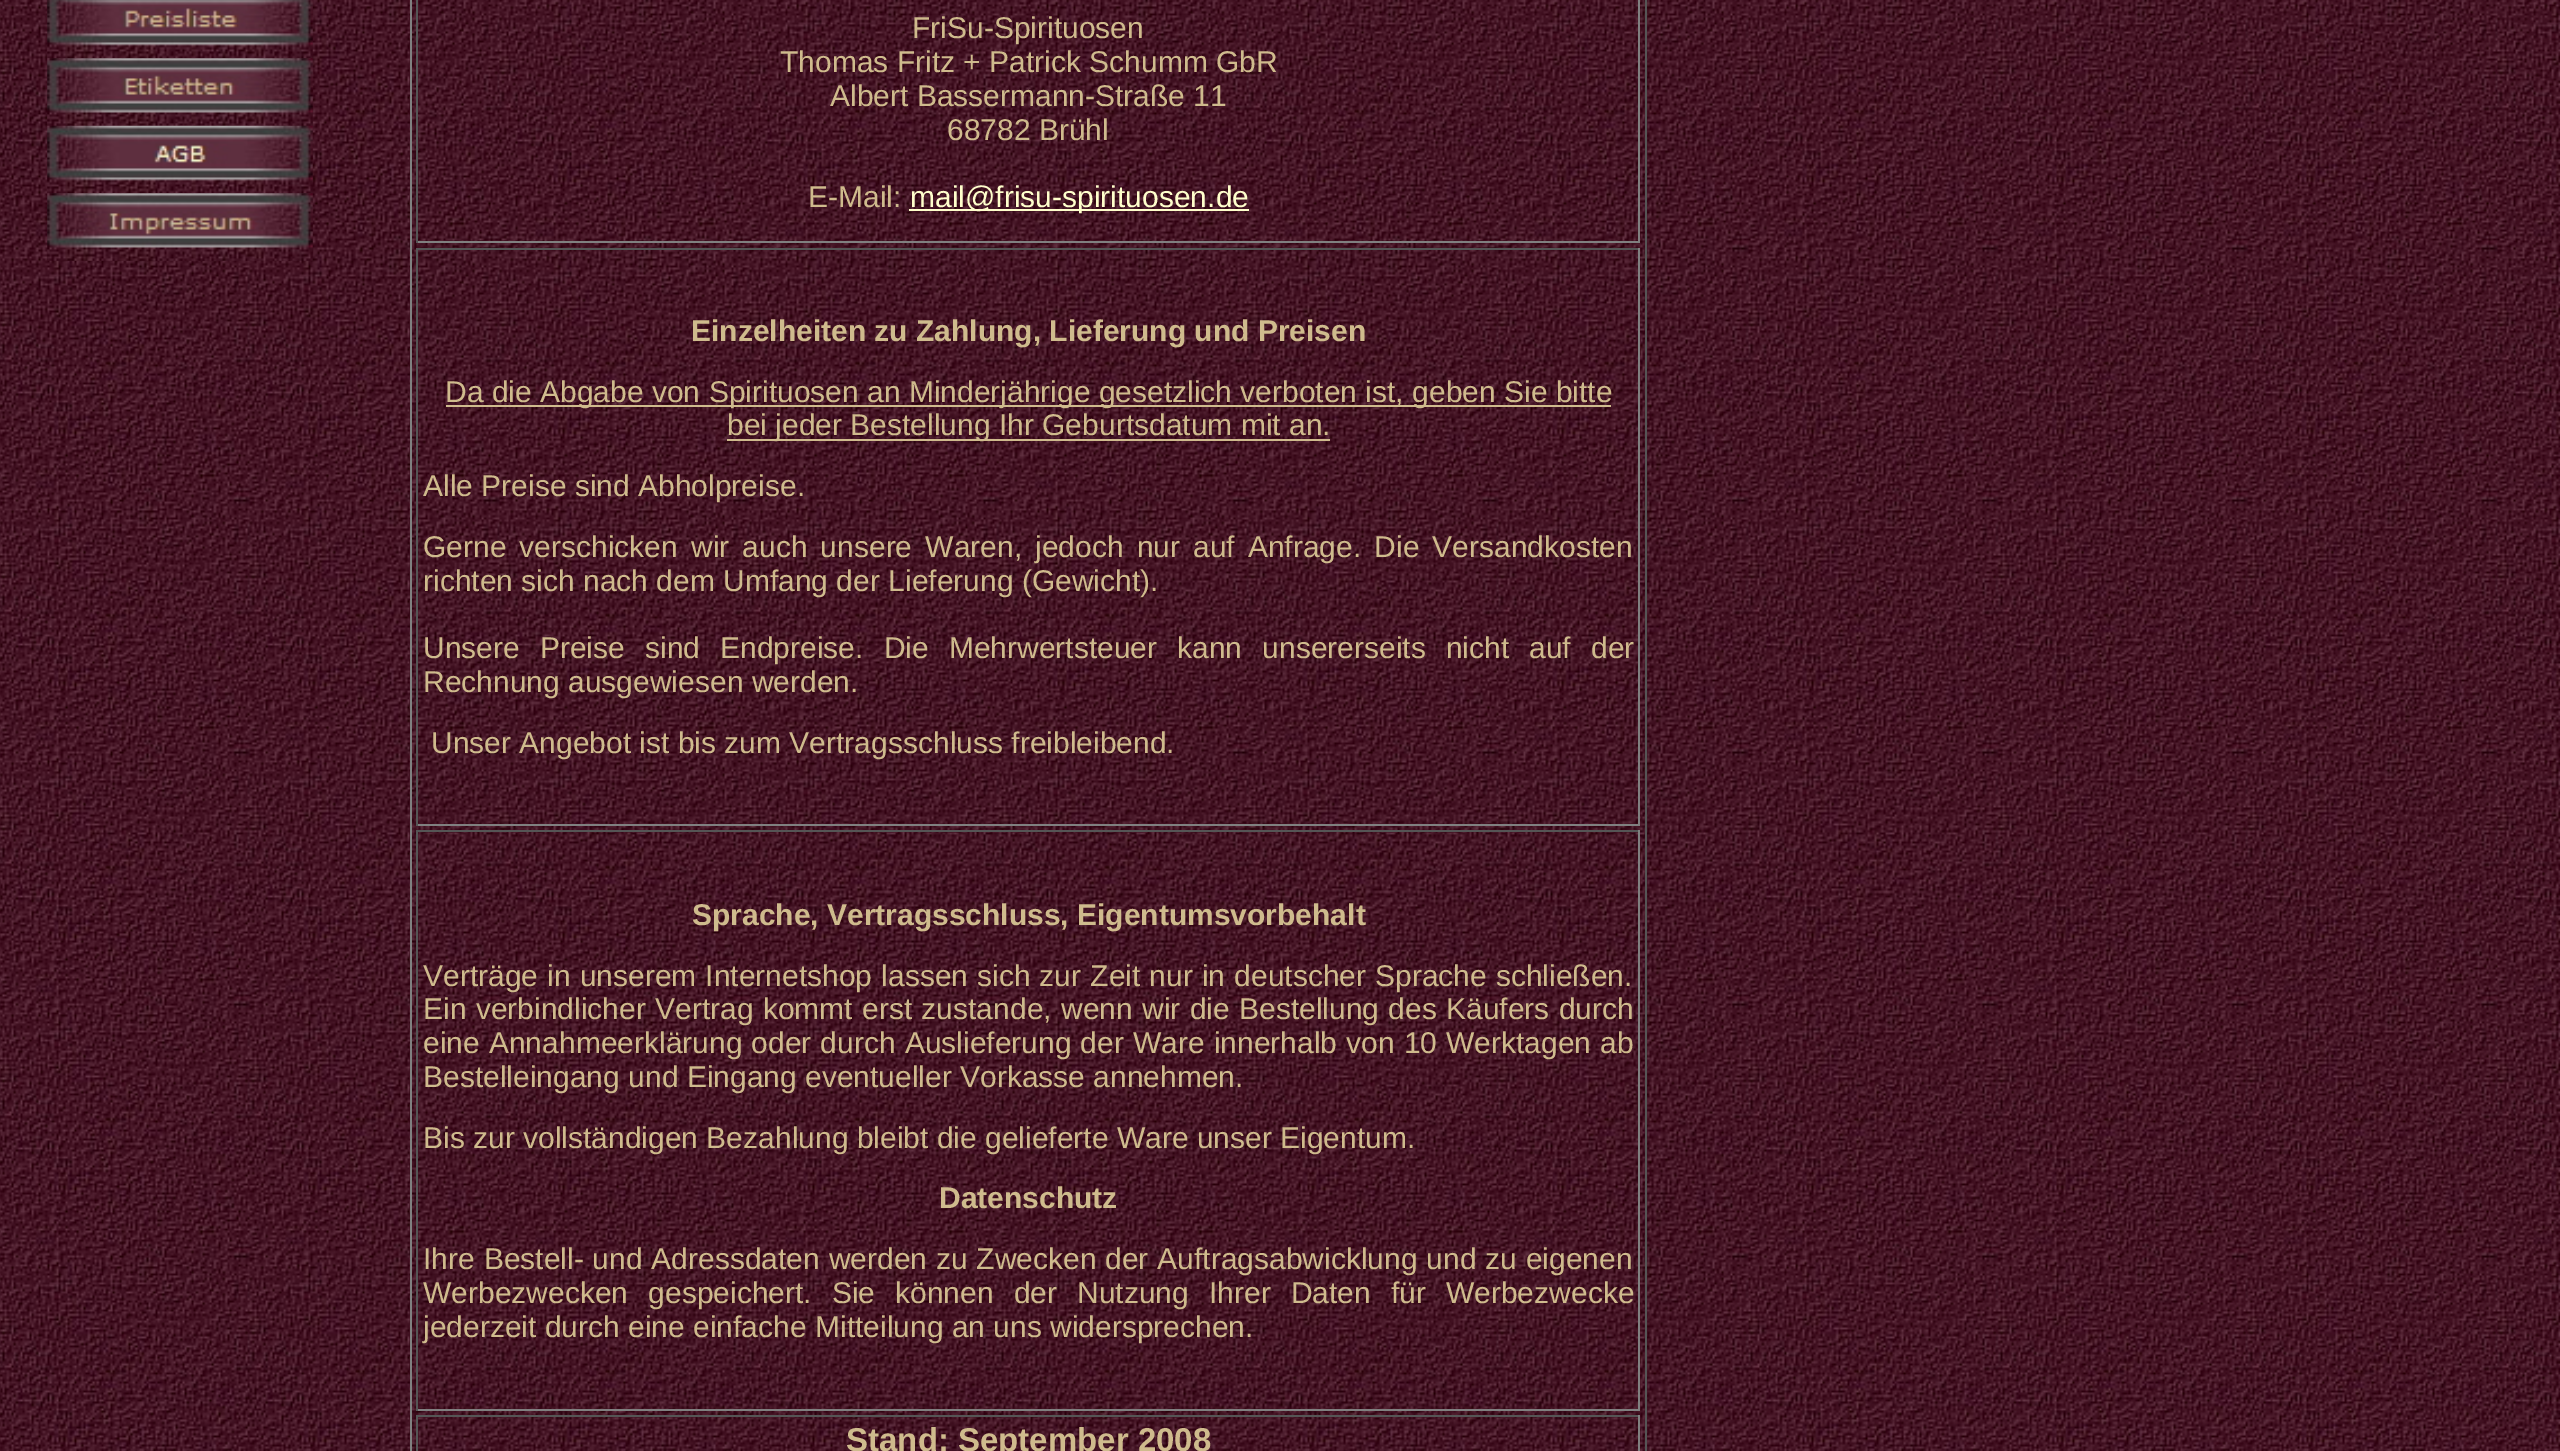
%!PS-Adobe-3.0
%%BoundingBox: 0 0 2560 1451
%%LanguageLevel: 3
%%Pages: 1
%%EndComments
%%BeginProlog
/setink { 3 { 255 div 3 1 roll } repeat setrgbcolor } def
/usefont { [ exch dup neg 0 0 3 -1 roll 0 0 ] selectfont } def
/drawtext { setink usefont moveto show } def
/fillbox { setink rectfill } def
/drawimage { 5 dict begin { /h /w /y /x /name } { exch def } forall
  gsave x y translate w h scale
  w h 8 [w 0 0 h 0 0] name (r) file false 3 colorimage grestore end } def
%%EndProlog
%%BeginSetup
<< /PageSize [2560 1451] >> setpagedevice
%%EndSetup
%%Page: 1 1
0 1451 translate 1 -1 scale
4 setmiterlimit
0 0 2560 1451 255 255 255 fillbox
(assets/img1.rgb) 0 0 2560 1451 drawimage
(assets/img2.rgb) 47 0 266 59 drawimage
(assets/img3.rgb) 47 58 266 68 drawimage
(assets/img4.rgb) 47 125 266 69 drawimage
(assets/img5.rgb) 47 193 266 68 drawimage
1645 0 2 1451 85 85 85 fillbox
410 0 2 1451 128 128 128 fillbox
1638 0 2 243 128 128 128 fillbox
416 241 1224 2 128 128 128 fillbox
416 0 2 243 85 85 85 fillbox
(FriSu-Spirituosen) 912 38 /LiberationSans-Regular 30 207 187 141 drawtext
(Thomas Fritz + Patrick Schumm GbR) 780 72 /LiberationSans-Regular 30 207 187 141 drawtext
(Albert Bassermann-Straße 11) 830 106 /LiberationSans-Regular 30 207 187 141 drawtext
(68782 Brühl) 947 140 /LiberationSans-Regular 30 207 187 141 drawtext
(E-Mail:) 808 207 /LiberationSans-Regular 30 207 187 141 drawtext
909 209 340 2 255 255 204 fillbox
(mail@frisu-spirituosen.de) 910 207 /LiberationSans-Regular 30 255 255 204 drawtext
416 248 1224 2 85 85 85 fillbox
1638 248 2 578 128 128 128 fillbox
416 824 1224 2 128 128 128 fillbox
416 248 2 578 85 85 85 fillbox
(Einzelheiten zu Zahlung, Lieferung und Preisen) 691 341 /LiberationSans-Bold 30 207 187 141 drawtext
446 405 1165 2 207 187 141 fillbox
(Da die Abgabe von Spirituosen an Minderjährige gesetzlich verboten ist, geben Sie bitte) 445 402 /LiberationSans-Regular 30 207 187 141 drawtext
727 439 603 2 207 187 141 fillbox
(bei jeder Bestellung Ihr Geburtsdatum mit an.) 727 435 /LiberationSans-Regular 30 207 187 141 drawtext
(Alle Preise sind Abholpreise.) 423 496 /LiberationSans-Regular 30 207 187 141 drawtext
423 557 moveto 4.75 0 32 (Gerne verschicken wir auch unsere Waren, jedoch nur auf Anfrage. Die Versandkosten) widthshow
(richten sich nach dem Umfang der Lieferung \(Gewicht\).) 423 591 /LiberationSans-Regular 30 207 187 141 drawtext
423 658 moveto 11.75 0 32 (Unsere Preise sind Endpreise. Die Mehrwertsteuer kann unsererseits nicht auf der) widthshow
(Rechnung ausgewiesen werden.) 423 692 /LiberationSans-Regular 30 207 187 141 drawtext
(Unser Angebot ist bis zum Vertragsschluss freibleibend.) 431 753 /LiberationSans-Regular 30 207 187 141 drawtext
416 830 1224 2 85 85 85 fillbox
1638 830 2 581 128 128 128 fillbox
416 1409 1224 2 128 128 128 fillbox
416 830 2 581 85 85 85 fillbox
(Sprache, Vertragsschluss, Eigentumsvorbehalt) 692 925 /LiberationSans-Bold 30 207 187 141 drawtext
/LiberationSans-Regular 30 usefont
423 986 moveto 0.75 0 32 (Verträge in unserem Internetshop lassen sich zur Zeit nur in deutscher Sprache schließen.) widthshow
423 1019 moveto 1 0 32 (Ein verbindlicher Vertrag kommt erst zustande, wenn wir die Bestellung des Käufers durch) widthshow
423 1053 moveto 0.75 0 32 (eine Annahmeerklärung oder durch Auslieferung der Ware innerhalb von 10 Werktagen ab) widthshow
(Bestelleingang und Eingang eventueller Vorkasse annehmen.) 423 1087 /LiberationSans-Regular 30 207 187 141 drawtext
(Bis zur vollständigen Bezahlung bleibt die gelieferte Ware unser Eigentum.) 423 1148 /LiberationSans-Regular 30 207 187 141 drawtext
(Datenschutz) 939 1208 /LiberationSans-Bold 30 207 187 141 drawtext
/LiberationSans-Regular 30 usefont
423 1269 moveto 0.5 0 32 (Ihre Bestell- und Adressdaten werden zu Zwecken der Auftragsabwicklung und zu eigenen) widthshow
423 1303 moveto 11.75 0 32 (Werbezwecken gespeichert. Sie können der Nutzung Ihrer Daten für Werbezwecke) widthshow
(jederzeit durch eine einfache Mitteilung an uns widersprechen.) 423 1337 /LiberationSans-Regular 30 207 187 141 drawtext
416 1415 1224 2 85 85 85 fillbox
1638 1415 2 36 128 128 128 fillbox
416 1415 2 36 85 85 85 fillbox
(Stand: September 2008) 846 1451 /LiberationSans-Bold 33 207 187 141 drawtext
showpage
%%EOF
